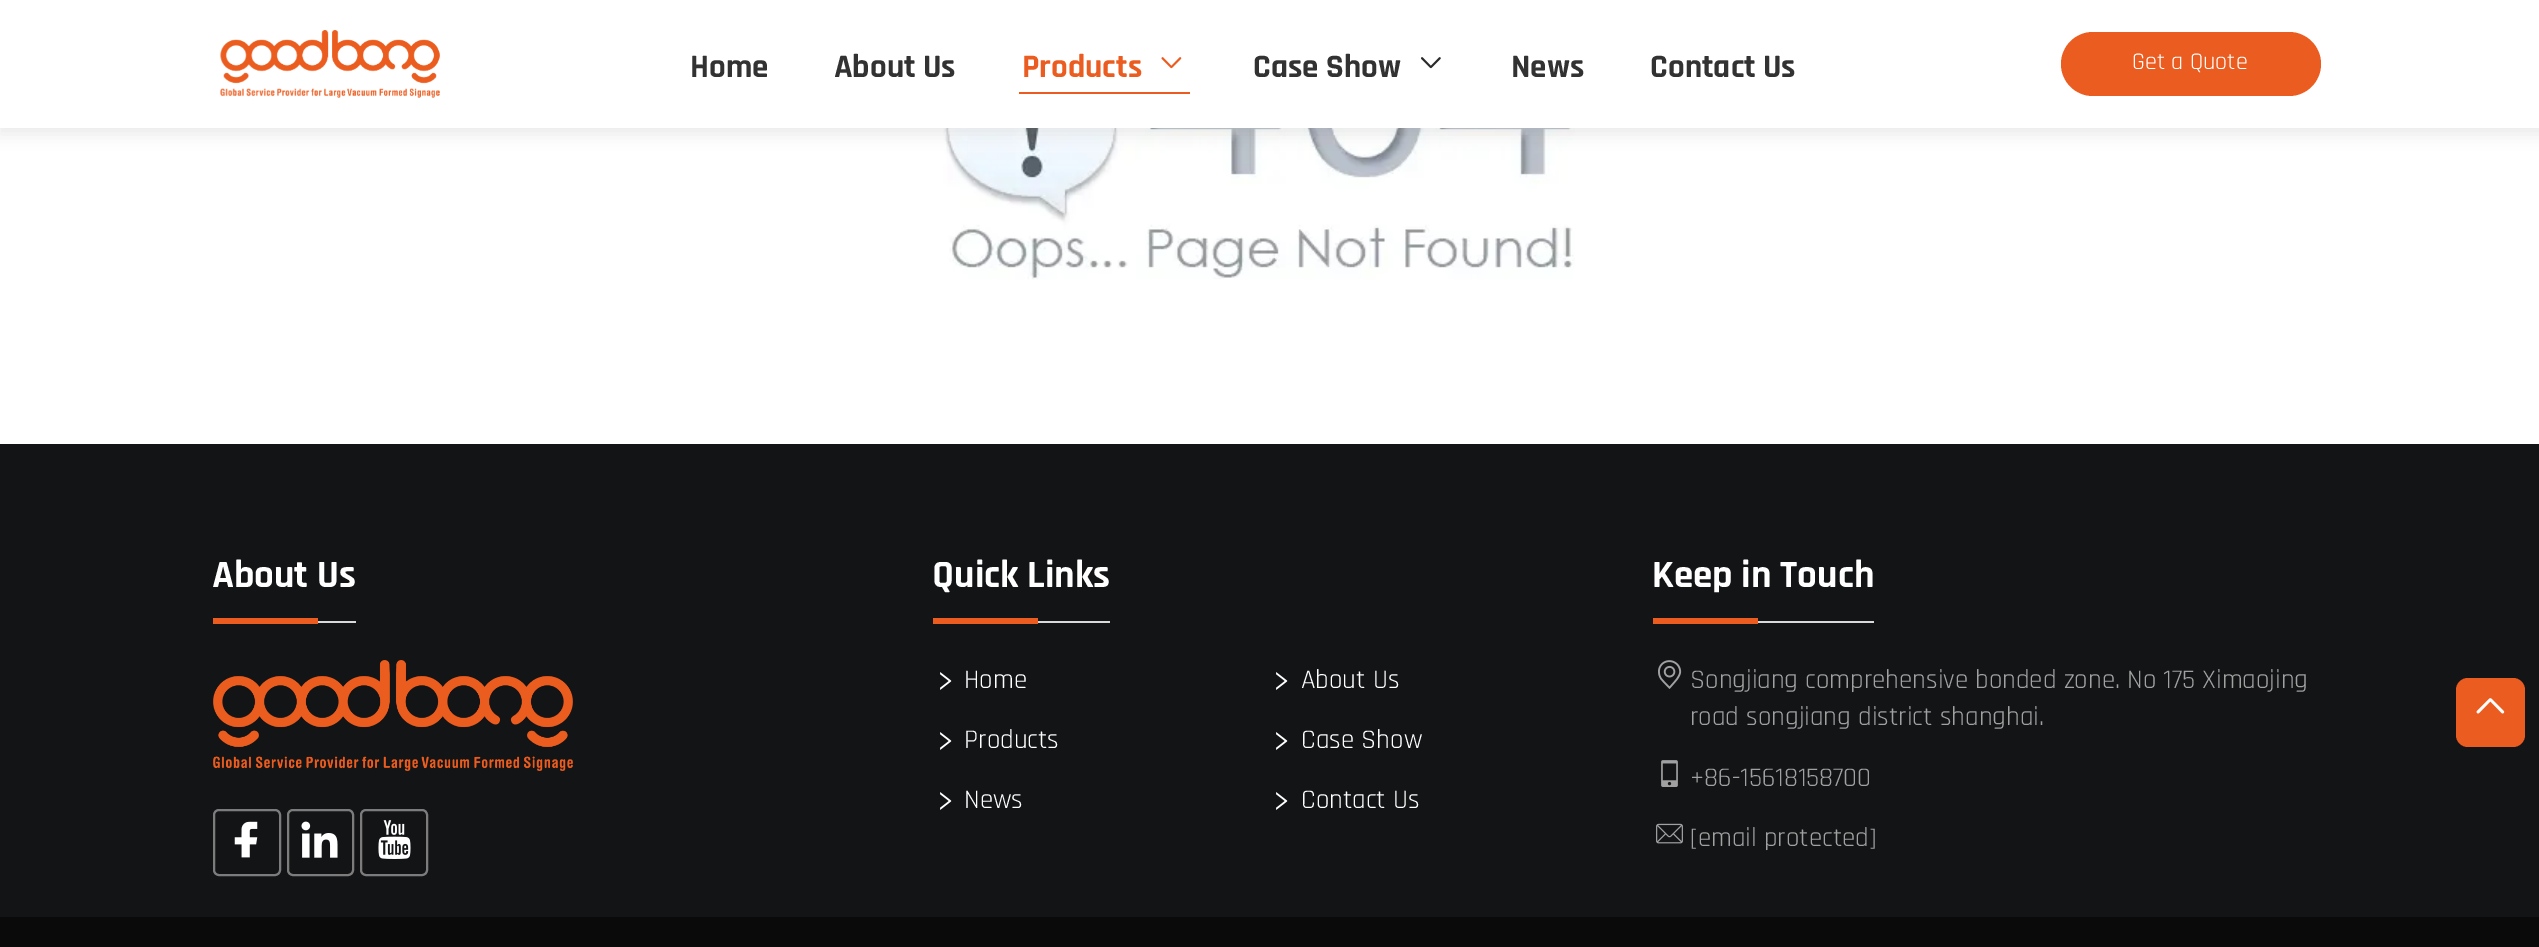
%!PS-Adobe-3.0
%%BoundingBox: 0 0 2539 947
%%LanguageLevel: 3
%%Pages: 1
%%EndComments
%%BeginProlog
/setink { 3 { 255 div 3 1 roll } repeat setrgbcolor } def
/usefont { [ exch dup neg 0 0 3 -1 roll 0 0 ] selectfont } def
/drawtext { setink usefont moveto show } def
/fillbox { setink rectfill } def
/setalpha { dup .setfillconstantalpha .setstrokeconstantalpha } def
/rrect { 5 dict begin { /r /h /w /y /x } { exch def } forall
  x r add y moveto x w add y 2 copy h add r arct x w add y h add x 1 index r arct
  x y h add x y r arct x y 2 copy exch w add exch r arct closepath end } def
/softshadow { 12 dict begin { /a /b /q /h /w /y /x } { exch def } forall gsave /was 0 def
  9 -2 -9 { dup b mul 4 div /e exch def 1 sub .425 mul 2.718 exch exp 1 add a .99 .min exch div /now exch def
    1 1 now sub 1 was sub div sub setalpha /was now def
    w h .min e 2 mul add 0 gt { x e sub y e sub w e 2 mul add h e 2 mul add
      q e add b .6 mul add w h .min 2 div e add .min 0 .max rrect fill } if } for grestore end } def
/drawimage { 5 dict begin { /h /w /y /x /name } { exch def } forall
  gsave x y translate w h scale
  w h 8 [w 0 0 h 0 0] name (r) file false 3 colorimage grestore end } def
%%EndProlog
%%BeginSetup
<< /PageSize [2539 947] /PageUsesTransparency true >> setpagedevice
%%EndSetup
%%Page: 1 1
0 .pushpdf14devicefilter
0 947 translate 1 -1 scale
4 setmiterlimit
0 0 2539 947 255 255 255 fillbox
(assets/img4.rgb) 943 128 632 152 drawimage
0 0 0 setink
-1 0 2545 134 0 7.5 0.08 softshadow
0 0 2539 128 255 255 255 fillbox
(assets/img1.rgb) 220 30 220 68 drawimage
(Home) 690 77 /Rajdhani-Bold 33 50 50 50 drawtext
(About Us) 834 77 /Rajdhani-Bold 33 50 50 50 drawtext
1019 92 171 2 235 92 32 fillbox
(Products) 1022 77 /Rajdhani-Bold 33 235 92 32 drawtext
(assets/img2.rgb) 1161 57 21 12 drawimage
(Case Show) 1253 77 /Rajdhani-Bold 33 50 50 50 drawtext
(assets/img3.rgb) 1421 57 20 12 drawimage
(News) 1511 77 /Rajdhani-Bold 33 50 50 50 drawtext
(Contact Us) 1650 77 /Rajdhani-Bold 33 50 50 50 drawtext
235 92 32 setink
2061 32 260 64 32 rrect fill
(Get a Quote) 2132 69 /Rajdhani-Regular 24 255 255 255 drawtext
0 444 2539 473 18 20 22 fillbox
318 621 38 2 218 218 218 fillbox
(About Us) 212 587 /Rajdhani-Bold 39 255 255 255 drawtext
213 618 105 6 235 92 32 fillbox
(assets/img5.rgb) 213 660 360 111 drawimage
124 124 124 setink
2 setlinewidth
214 810 66 65 5 rrect stroke
(assets/img6.rgb) 234 821 24 37 drawimage
288 810 65 65 5 rrect stroke
(assets/img7.rgb) 301 821 37 37 drawimage
361 810 66 65 5 rrect stroke
(assets/img8.rgb) 378 820 33 39 drawimage
1038 621 72 2 218 218 218 fillbox
(Quick Links) 932 587 /Rajdhani-Bold 39 255 255 255 drawtext
933 618 105 6 235 92 32 fillbox
(assets/img9.rgb) 940 672 12 18 drawimage
(Home) 964 688 /Rajdhani-Regular 27 255 255 255 drawtext
(assets/img9.rgb) 1276 672 12 18 drawimage
(About Us) 1301 688 /Rajdhani-Regular 27 255 255 255 drawtext
(assets/img9.rgb) 940 732 12 18 drawimage
(Products) 964 748 /Rajdhani-Regular 27 255 255 255 drawtext
(assets/img9.rgb) 1276 732 12 18 drawimage
(Case Show) 1301 748 /Rajdhani-Regular 27 255 255 255 drawtext
(assets/img9.rgb) 940 792 12 18 drawimage
(News) 964 808 /Rajdhani-Regular 27 255 255 255 drawtext
(assets/img9.rgb) 1276 792 12 18 drawimage
(Contact Us) 1301 808 /Rajdhani-Regular 27 255 255 255 drawtext
1758 621 116 2 218 218 218 fillbox
(Keep in Touch) 1652 587 /Rajdhani-Bold 39 255 255 255 drawtext
1653 618 105 6 235 92 32 fillbox
(assets/img10.rgb) 1658 660 24 29 drawimage
(Songjiang comprehensive bonded zone. No 175 Ximaojing) 1690 688 /Rajdhani-Regular 27 161 161 161 drawtext
(road songjiang district shanghai.) 1690 725 /Rajdhani-Regular 27 161 161 161 drawtext
(assets/img11.rgb) 1661 760 17 27 drawimage
(+86-15618158700) 1690 786 /Rajdhani-Regular 27 161 161 161 drawtext
(assets/img12.rgb) 1656 823 27 21 drawimage
([email protected]) 1690 846 /Rajdhani-Regular 27 161 161 161 drawtext
235 92 32 setink
2456 678 69 69 12 rrect fill
(assets/img13.rgb) 2476 698 29 16 drawimage
0 917 2539 30 10 10 11 fillbox
.poppdf14devicefilter showpage
%%EOF
